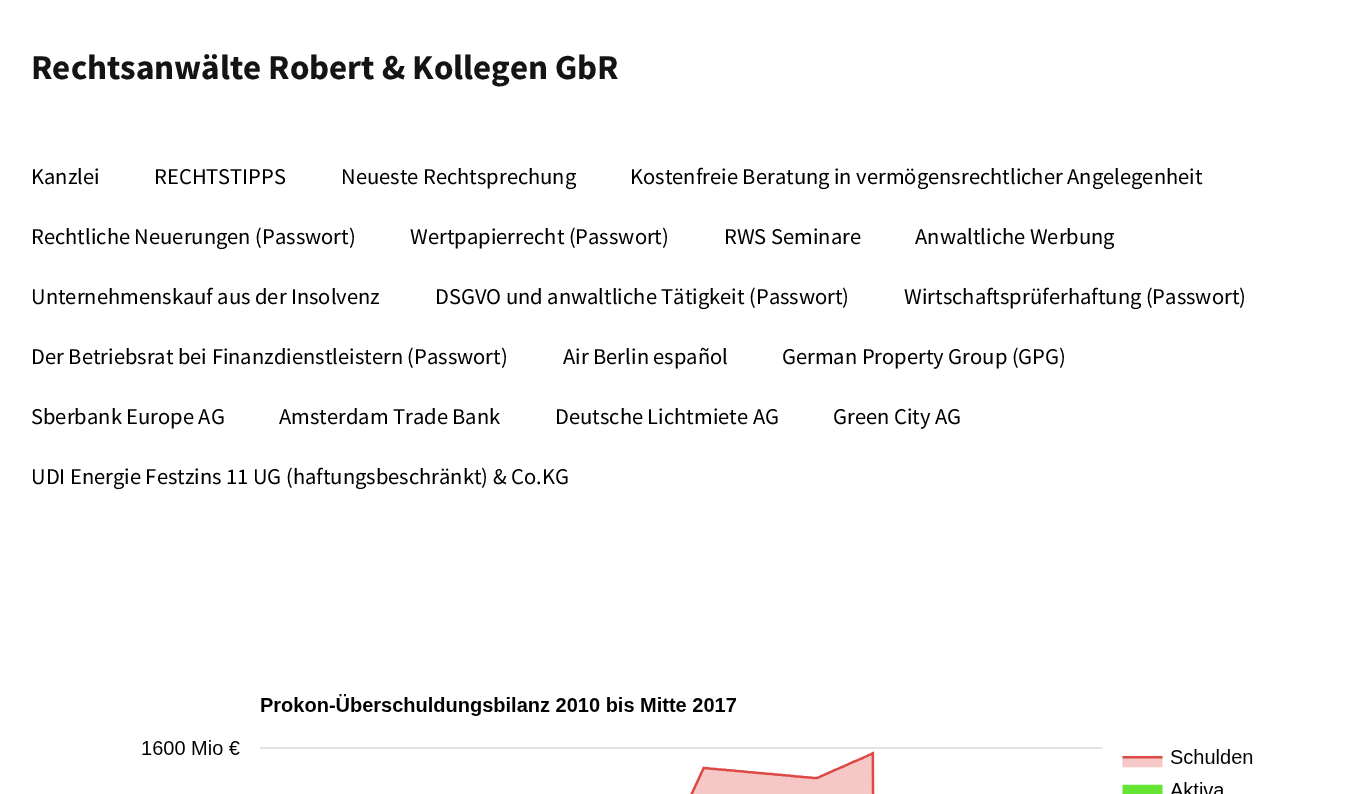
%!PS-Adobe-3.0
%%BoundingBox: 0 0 1362 794
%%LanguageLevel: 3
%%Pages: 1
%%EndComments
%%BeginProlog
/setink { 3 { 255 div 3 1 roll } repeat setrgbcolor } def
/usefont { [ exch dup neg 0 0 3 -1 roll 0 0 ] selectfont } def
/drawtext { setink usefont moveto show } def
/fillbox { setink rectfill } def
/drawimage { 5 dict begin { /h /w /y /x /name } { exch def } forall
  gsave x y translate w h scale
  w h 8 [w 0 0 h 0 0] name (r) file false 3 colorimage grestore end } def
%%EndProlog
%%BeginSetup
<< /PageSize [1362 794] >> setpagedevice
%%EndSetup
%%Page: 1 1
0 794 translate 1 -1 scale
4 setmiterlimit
0 0 1362 794 255 255 255 fillbox
(Rechtsanwälte Robert & Kollegen GbR) 31 79 /SourceSansPro-Bold 35 20 20 18 drawtext
(Kanzlei) 31 184 /SourceSansPro-Regular 22.5 0 0 0 drawtext
(RECHTSTIPPS) 154 184 /SourceSansPro-Regular 22.5 0 0 0 drawtext
(Neueste Rechtsprechung) 341 184 /SourceSansPro-Regular 22.5 0 0 0 drawtext
(Kostenfreie Beratung in vermögensrechtlicher Angelegenheit) 630 184 /SourceSansPro-Regular 22.5 0 0 0 drawtext
(Rechtliche Neuerungen \(Passwort\)) 31 244 /SourceSansPro-Regular 22.5 0 0 0 drawtext
(Wertpapierrecht \(Passwort\)) 410 244 /SourceSansPro-Regular 22.5 0 0 0 drawtext
(RWS Seminare) 724 244 /SourceSansPro-Regular 22.5 0 0 0 drawtext
(Anwaltliche Werbung) 915 244 /SourceSansPro-Regular 22.5 0 0 0 drawtext
(Unternehmenskauf aus der Insolvenz) 31 304 /SourceSansPro-Regular 22.5 0 0 0 drawtext
(DSGVO und anwaltliche Tätigkeit \(Passwort\)) 435 304 /SourceSansPro-Regular 22.5 0 0 0 drawtext
(Wirtschaftsprüferhaftung \(Passwort\)) 904 304 /SourceSansPro-Regular 22.5 0 0 0 drawtext
(Der Betriebsrat bei Finanzdienstleistern \(Passwort\)) 31 364 /SourceSansPro-Regular 22.5 0 0 0 drawtext
(Air Berlin español) 563 364 /SourceSansPro-Regular 22.5 0 0 0 drawtext
(German Property Group \(GPG\)) 782 364 /SourceSansPro-Regular 22.5 0 0 0 drawtext
(Sberbank Europe AG) 31 424 /SourceSansPro-Regular 22.5 0 0 0 drawtext
(Amsterdam Trade Bank) 279 424 /SourceSansPro-Regular 22.5 0 0 0 drawtext
(Deutsche Lichtmiete AG) 555 424 /SourceSansPro-Regular 22.5 0 0 0 drawtext
(Green City AG) 833 424 /SourceSansPro-Regular 22.5 0 0 0 drawtext
(UDI Energie Festzins 11 UG \(haftungsbeschränkt\) & Co.KG) 31 484 /SourceSansPro-Regular 22.5 0 0 0 drawtext
(assets/img1.rgb) 142 694 1111 100 drawimage
showpage
%%EOF
